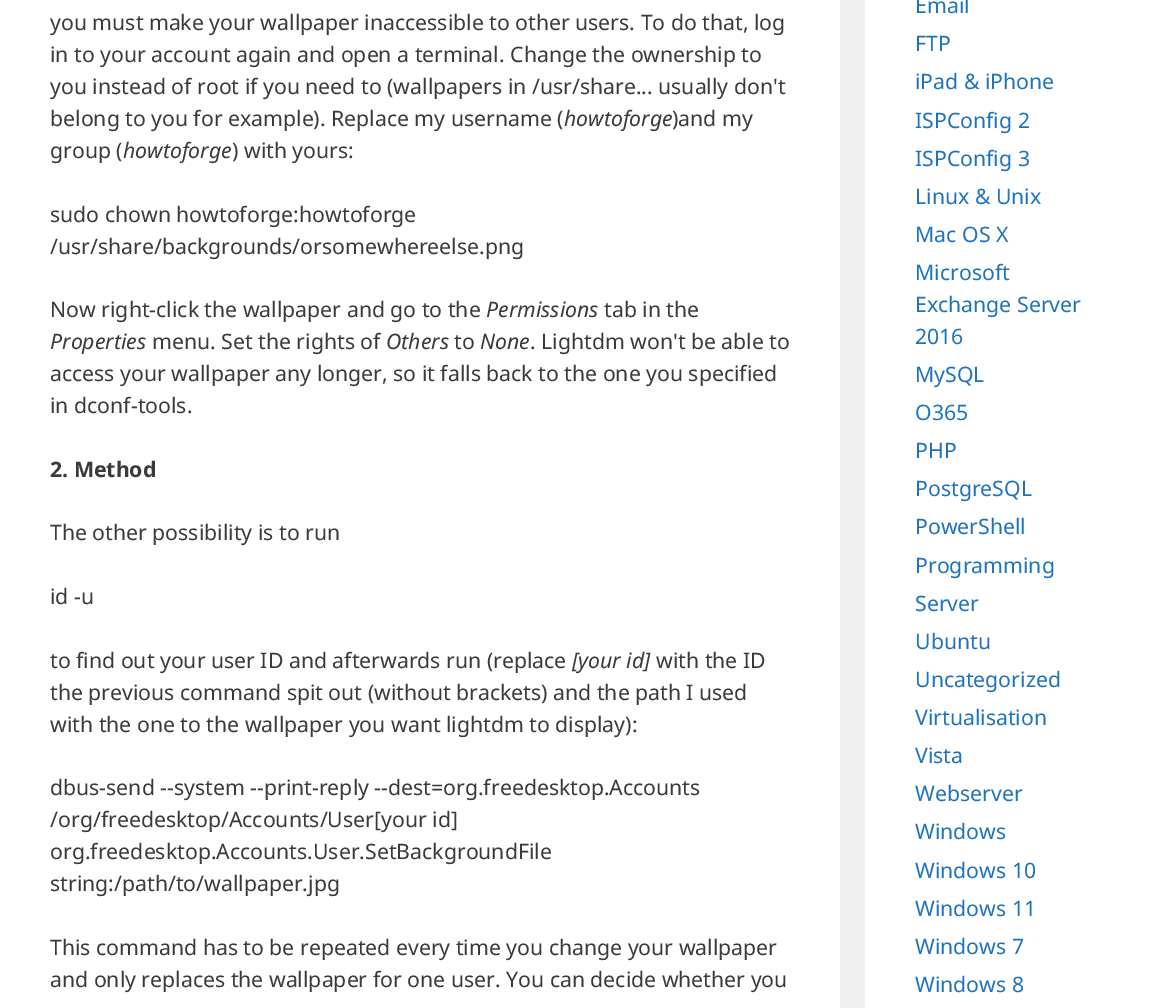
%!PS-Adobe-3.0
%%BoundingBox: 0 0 1153 1008
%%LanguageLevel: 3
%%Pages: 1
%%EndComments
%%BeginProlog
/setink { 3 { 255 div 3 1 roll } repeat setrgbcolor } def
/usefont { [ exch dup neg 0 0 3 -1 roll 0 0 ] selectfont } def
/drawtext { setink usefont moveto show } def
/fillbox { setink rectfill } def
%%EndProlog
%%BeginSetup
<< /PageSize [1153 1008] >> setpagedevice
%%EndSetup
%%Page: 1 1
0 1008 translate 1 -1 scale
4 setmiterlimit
0 0 1153 1008 239 239 239 fillbox
0 0 840 1008 255 255 255 fillbox
(you must make your wallpaper inaccessible to other users. To do that, log) 50 30 /NotoSans-Regular 21.25 58 58 58 drawtext
(in to your account again and open a terminal. Change the ownership to) 50 62 /NotoSans-Regular 21.25 58 58 58 drawtext
(you instead of root if you need to \(wallpapers in /usr/share... usually don't) 50 94 /NotoSans-Regular 21.25 58 58 58 drawtext
(belong to you for example\). Replace my username \() 50 126 /NotoSans-Regular 21.25 58 58 58 drawtext
(howtoforge) 564 126 /NotoSans-Italic 21.25 58 58 58 drawtext
(\)and my) 672 126 /NotoSans-Regular 21.25 58 58 58 drawtext
(group \() 50 158 /NotoSans-Regular 21.25 58 58 58 drawtext
(howtoforge) 123 158 /NotoSans-Italic 21.25 58 58 58 drawtext
(\) with yours:) 232 158 /NotoSans-Regular 21.25 58 58 58 drawtext
(sudo chown howtoforge:howtoforge) 50 222 /NotoSans-Regular 21.25 58 58 58 drawtext
(/usr/share/backgrounds/orsomewhereelse.png) 50 254 /NotoSans-Regular 21.25 58 58 58 drawtext
(Now right-click the wallpaper and go to the) 50 317 /NotoSans-Regular 21.25 58 58 58 drawtext
(Permissions) 486 317 /NotoSans-Italic 21.25 58 58 58 drawtext
(tab in the) 604 317 /NotoSans-Regular 21.25 58 58 58 drawtext
(Properties) 50 349 /NotoSans-Italic 21.25 58 58 58 drawtext
(menu. Set the rights of) 152 349 /NotoSans-Regular 21.25 58 58 58 drawtext
(Others) 386 349 /NotoSans-Italic 21.25 58 58 58 drawtext
(to) 454 349 /NotoSans-Regular 21.25 58 58 58 drawtext
(None) 480 349 /NotoSans-Italic 21.25 58 58 58 drawtext
(. Lightdm won't be able to) 530 349 /NotoSans-Regular 21.25 58 58 58 drawtext
(access your wallpaper any longer, so it falls back to the one you specified) 50 381 /NotoSans-Regular 21.25 58 58 58 drawtext
(in dconf-tools.) 50 413 /NotoSans-Regular 21.25 58 58 58 drawtext
(2. Method) 50 477 /NotoSans-Bold 21.25 58 58 58 drawtext
(The other possibility is to run) 50 540 /NotoSans-Regular 21.25 58 58 58 drawtext
(id -u) 50 604 /NotoSans-Regular 21.25 58 58 58 drawtext
(to find out your user ID and afterwards run \(replace) 50 668 /NotoSans-Regular 21.25 58 58 58 drawtext
([your id]) 572 668 /NotoSans-Italic 21.25 58 58 58 drawtext
(with the ID) 656 668 /NotoSans-Regular 21.25 58 58 58 drawtext
(the previous command spit out \(without brackets\) and the path I used) 50 700 /NotoSans-Regular 21.25 58 58 58 drawtext
(with the one to the wallpaper you want lightdm to display\):) 50 732 /NotoSans-Regular 21.25 58 58 58 drawtext
(dbus-send --system --print-reply --dest=org.freedesktop.Accounts) 50 795 /NotoSans-Regular 21.25 58 58 58 drawtext
(/org/freedesktop/Accounts/User[your id]) 50 827 /NotoSans-Regular 21.25 58 58 58 drawtext
(org.freedesktop.Accounts.User.SetBackgroundFile) 50 859 /NotoSans-Regular 21.25 58 58 58 drawtext
(string:/path/to/wallpaper.jpg) 50 891 /NotoSans-Regular 21.25 58 58 58 drawtext
(This command has to be repeated every time you change your wallpaper) 50 955 /NotoSans-Regular 21.25 58 58 58 drawtext
(and only replaces the wallpaper for one user. You can decide whether you) 50 987 /NotoSans-Regular 21.25 58 58 58 drawtext
865 0 288 1008 255 255 255 fillbox
(Email) 915 13 /NotoSans-Regular 21.25 30 115 190 drawtext
(FTP) 915 51 /NotoSans-Regular 21.25 30 115 190 drawtext
(iPad & iPhone) 915 89 /NotoSans-Regular 21.25 30 115 190 drawtext
(ISPConfig 2) 915 128 /NotoSans-Regular 21.25 30 115 190 drawtext
(ISPConfig 3) 915 166 /NotoSans-Regular 21.25 30 115 190 drawtext
(Linux & Unix) 915 204 /NotoSans-Regular 21.25 30 115 190 drawtext
(Mac OS X) 915 242 /NotoSans-Regular 21.25 30 115 190 drawtext
(Microsoft) 915 280 /NotoSans-Regular 21.25 30 115 190 drawtext
(Exchange Server) 915 312 /NotoSans-Regular 21.25 30 115 190 drawtext
(2016) 915 344 /NotoSans-Regular 21.25 30 115 190 drawtext
(MySQL) 915 382 /NotoSans-Regular 21.25 30 115 190 drawtext
(O365) 915 420 /NotoSans-Regular 21.25 30 115 190 drawtext
(PHP) 915 458 /NotoSans-Regular 21.25 30 115 190 drawtext
(PostgreSQL) 915 496 /NotoSans-Regular 21.25 30 115 190 drawtext
(PowerShell) 915 534 /NotoSans-Regular 21.25 30 115 190 drawtext
(Programming) 915 573 /NotoSans-Regular 21.25 30 115 190 drawtext
(Server) 915 611 /NotoSans-Regular 21.25 30 115 190 drawtext
(Ubuntu) 915 649 /NotoSans-Regular 21.25 30 115 190 drawtext
(Uncategorized) 915 687 /NotoSans-Regular 21.25 30 115 190 drawtext
(Virtualisation) 915 725 /NotoSans-Regular 21.25 30 115 190 drawtext
(Vista) 915 763 /NotoSans-Regular 21.25 30 115 190 drawtext
(Webserver) 915 801 /NotoSans-Regular 21.25 30 115 190 drawtext
(Windows) 915 839 /NotoSans-Regular 21.25 30 115 190 drawtext
(Windows 10) 915 878 /NotoSans-Regular 21.25 30 115 190 drawtext
(Windows 11) 915 916 /NotoSans-Regular 21.25 30 115 190 drawtext
(Windows 7) 915 954 /NotoSans-Regular 21.25 30 115 190 drawtext
(Windows 8) 915 992 /NotoSans-Regular 21.25 30 115 190 drawtext
showpage
%%EOF
